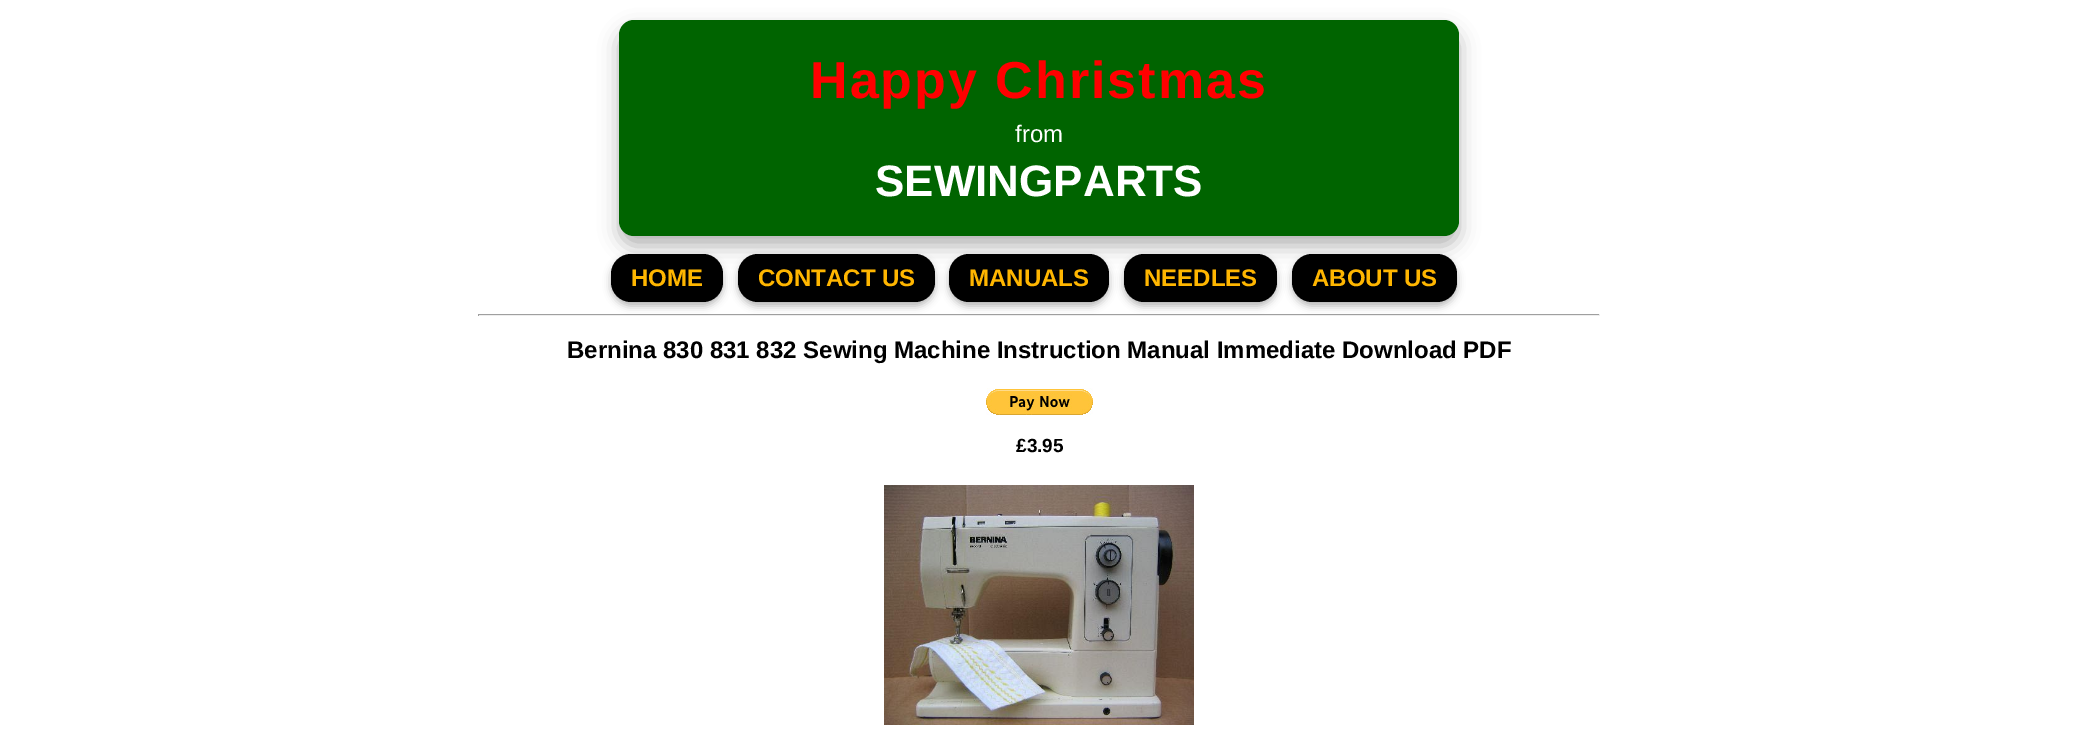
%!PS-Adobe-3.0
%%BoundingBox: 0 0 2078 748
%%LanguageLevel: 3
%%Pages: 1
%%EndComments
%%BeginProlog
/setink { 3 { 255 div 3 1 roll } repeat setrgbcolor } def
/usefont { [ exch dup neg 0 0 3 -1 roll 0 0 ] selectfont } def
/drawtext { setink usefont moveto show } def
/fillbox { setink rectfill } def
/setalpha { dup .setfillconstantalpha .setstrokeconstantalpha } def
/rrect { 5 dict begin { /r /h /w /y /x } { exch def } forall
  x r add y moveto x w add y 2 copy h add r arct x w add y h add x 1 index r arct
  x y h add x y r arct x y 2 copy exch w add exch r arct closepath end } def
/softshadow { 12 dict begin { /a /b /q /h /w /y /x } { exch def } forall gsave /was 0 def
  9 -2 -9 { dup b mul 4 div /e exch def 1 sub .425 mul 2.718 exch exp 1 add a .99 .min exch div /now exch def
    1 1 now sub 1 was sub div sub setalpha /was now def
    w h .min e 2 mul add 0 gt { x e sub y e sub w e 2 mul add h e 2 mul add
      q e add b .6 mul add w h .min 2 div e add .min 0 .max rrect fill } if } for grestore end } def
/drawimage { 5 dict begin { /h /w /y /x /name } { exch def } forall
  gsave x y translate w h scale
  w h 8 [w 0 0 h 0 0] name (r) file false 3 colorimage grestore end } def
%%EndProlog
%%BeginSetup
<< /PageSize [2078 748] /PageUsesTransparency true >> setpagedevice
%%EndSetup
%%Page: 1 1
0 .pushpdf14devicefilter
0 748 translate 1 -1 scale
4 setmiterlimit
0 0 2078 748 255 255 255 fillbox
0 0 0 setink
619 30 840 216 15 10 0.3 softshadow
0 100 0 setink
619 20 840 216 15 rrect fill
/LiberationSans-Bold 52 usefont
255 0 0 setink
810 98 moveto 2 0 (Happy Christmas) ashow
(from) 1015 142 /LiberationSans-Regular 24 255 255 255 drawtext
(SEWINGPARTS) 875 196 /LiberationSans-Bold 44 255 255 255 drawtext
478 314 1122 1 159 159 159 fillbox
1599 314 1 2 238 238 238 fillbox
478 315 1122 1 238 238 238 fillbox
0 0 0 setink
611 258 112 48 20 4 0.3 softshadow
611 254 112 48 20 rrect fill
(HOME) 631 286 /LiberationSans-Bold 24 255 182 0 drawtext
0 0 0 setink
738 258 197 48 20 4 0.3 softshadow
738 254 197 48 20 rrect fill
(CONTACT US) 758 286 /LiberationSans-Bold 24 255 182 0 drawtext
0 0 0 setink
949 258 160 48 20 4 0.3 softshadow
949 254 160 48 20 rrect fill
(MANUALS) 969 286 /LiberationSans-Bold 24 255 182 0 drawtext
0 0 0 setink
1124 258 153 48 20 4 0.3 softshadow
1124 254 153 48 20 rrect fill
(NEEDLES) 1144 286 /LiberationSans-Bold 24 255 182 0 drawtext
0 0 0 setink
1292 258 165 48 20 4 0.3 softshadow
1292 254 165 48 20 rrect fill
(ABOUT US) 1312 286 /LiberationSans-Bold 24 255 182 0 drawtext
478 314 1 2 159 159 159 fillbox
(Bernina 830 831 832 Sewing Machine Instruction Manual Immediate Download PDF) 567 358 /LiberationSans-Bold 24 0 0 0 drawtext
(assets/img1.rgb) 986 388 107 27 drawimage
(£3.95) 1016 452 /LiberationSans-Bold 19 0 0 0 drawtext
(assets/img2.rgb) 884 485 310 240 drawimage
.poppdf14devicefilter showpage
%%EOF
